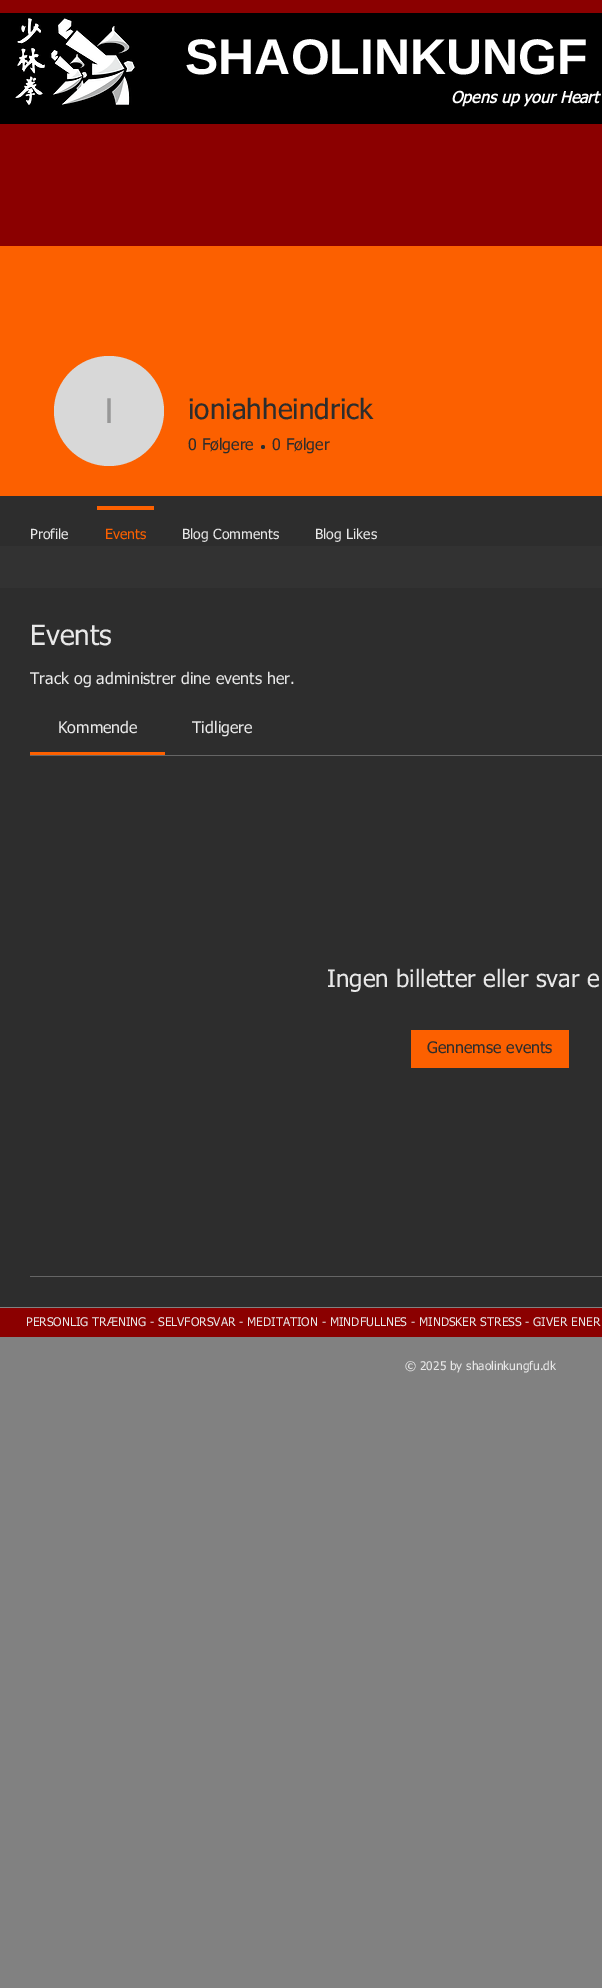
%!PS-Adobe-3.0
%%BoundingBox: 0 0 602 1988
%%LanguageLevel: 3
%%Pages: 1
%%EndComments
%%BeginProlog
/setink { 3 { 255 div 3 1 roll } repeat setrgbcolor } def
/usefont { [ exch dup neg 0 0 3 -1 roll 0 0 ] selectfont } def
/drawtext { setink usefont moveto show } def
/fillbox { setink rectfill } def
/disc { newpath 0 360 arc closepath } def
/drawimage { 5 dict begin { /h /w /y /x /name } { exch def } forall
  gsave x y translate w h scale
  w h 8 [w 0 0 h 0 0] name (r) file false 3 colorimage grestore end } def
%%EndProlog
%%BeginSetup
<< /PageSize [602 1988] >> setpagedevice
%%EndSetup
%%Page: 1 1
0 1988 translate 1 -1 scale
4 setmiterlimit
0 0 602 1988 129 129 129 fillbox
0 0 602 246 139 0 0 fillbox
0 13 602 111 0 0 0 fillbox
(assets/img1.rgb) 15 17 120 88 drawimage
(SHAOLINKUNGF) 185 74 /LiberationSans-Bold 50 255 255 255 drawtext
(Opens up your Heart) 451 103 /tahoma-BoldItalic 16 255 255 255 drawtext
0 246 602 250 252 96 0 fillbox
216 216 216 setink
109 411 55 disc fill
(I) 104 423 /LiberationSans-Regular 36 151 151 151 drawtext
(ioniahheindrick) 188 419 /tahoma-Regular 28 45 45 45 drawtext
(0 Følgere) 188 450 /tahoma-Regular 16 45 45 45 drawtext
263 447 2 disc fill
(0 Følger) 272 450 /tahoma-Regular 16 45 45 45 drawtext
0 496 602 50 45 45 45 fillbox
(Profile) 30 539 /tahoma-Regular 14 232 232 232 drawtext
97 506 57 4 252 96 0 fillbox
(Events) 105 539 /tahoma-Regular 14 252 96 0 drawtext
(Blog Comments) 182 539 /tahoma-Regular 14 232 232 232 drawtext
(Blog Likes) 315 539 /tahoma-Regular 14 232 232 232 drawtext
0 588 602 719 45 45 45 fillbox
(Events) 30 645 /tahoma-Regular 28 232 232 232 drawtext
(Track og administrer dine events her.) 30 684 /tahoma-Regular 16 232 232 232 drawtext
30 752 135 3 252 96 0 fillbox
(Kommende) 58 733 /tahoma-Regular 16 232 232 232 drawtext
(Tidligere) 192 733 /tahoma-Regular 16 232 232 232 drawtext
30 755 572 1 101 101 101 fillbox
(Ingen billetter eller svar e) 327 987 /tahoma-Regular 24 232 232 232 drawtext
411 1030 158 38 252 96 0 fillbox
(Gennemse events) 427 1053 /tahoma-Regular 16 45 45 45 drawtext
30 1276 572 1 101 101 101 fillbox
0 1308 602 29 139 0 0 fillbox
(PERSONLIG TRÆNING - SELVFORSVAR - MEDITATION - MINDFULLNES - MINDSKER STRESS - GIVER ENER) 26 1326 /tahoma-Regular 12 232 232 232 drawtext
(© 2025 by shaolinkungfu.dk) 405 1370 /tahoma-Regular 12 232 232 232 drawtext
0 546 602 42 50 50 50 fillbox
showpage
%%EOF
